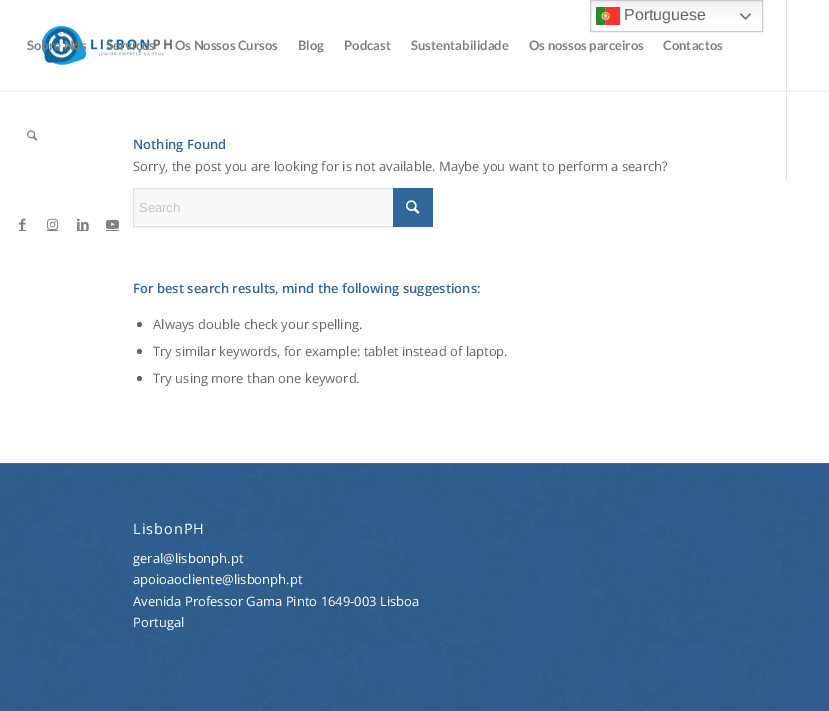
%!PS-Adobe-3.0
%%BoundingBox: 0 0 829 711
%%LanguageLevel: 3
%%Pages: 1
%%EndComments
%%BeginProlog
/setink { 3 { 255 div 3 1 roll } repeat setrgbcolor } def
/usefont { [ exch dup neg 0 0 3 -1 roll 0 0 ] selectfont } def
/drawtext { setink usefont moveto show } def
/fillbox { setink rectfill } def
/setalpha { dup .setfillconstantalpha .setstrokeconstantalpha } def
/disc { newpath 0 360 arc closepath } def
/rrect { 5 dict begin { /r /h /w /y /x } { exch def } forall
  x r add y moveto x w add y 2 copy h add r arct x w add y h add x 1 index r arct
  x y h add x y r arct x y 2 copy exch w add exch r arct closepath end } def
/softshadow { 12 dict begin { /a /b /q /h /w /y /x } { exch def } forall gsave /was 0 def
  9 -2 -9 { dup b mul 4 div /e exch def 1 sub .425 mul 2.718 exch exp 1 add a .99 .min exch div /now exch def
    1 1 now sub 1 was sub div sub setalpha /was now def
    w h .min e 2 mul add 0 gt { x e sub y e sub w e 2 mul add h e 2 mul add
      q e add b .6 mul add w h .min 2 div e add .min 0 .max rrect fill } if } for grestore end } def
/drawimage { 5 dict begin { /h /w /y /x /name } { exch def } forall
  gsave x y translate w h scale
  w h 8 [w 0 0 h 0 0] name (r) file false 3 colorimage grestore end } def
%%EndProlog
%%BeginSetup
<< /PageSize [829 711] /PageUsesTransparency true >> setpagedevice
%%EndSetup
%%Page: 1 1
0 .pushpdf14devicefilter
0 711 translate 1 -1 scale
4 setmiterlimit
0 0 829 711 255 255 255 fillbox
gsave
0 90 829 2 rectclip
0 0 0 setink
-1 -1 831 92 0 1 0.1 softshadow
grestore
gsave 591 1 moveto 762 1 lineto 762 19 lineto 591 19 lineto closepath clip newpath
<< /ShadingType 2 /ColorSpace /DeviceRGB /Coords [677 0 677 32] /Extend [true true] /Function << /FunctionType 3 /Domain [0 1] /Functions [<< /FunctionType 2 /Domain [0 1] /C0 [0.937 0.937 0.937] /C1 [1 1 1] /N 1 >> << /FunctionType 2 /Domain [0 1] /C0 [1 1 1] /C1 [1 1 1] /N 1 >>] /Bounds [0.7] /Encode [0 1 0 1] >> >> shfill grestore
204 204 204 setink
590.5 0.5 172 31 rectstroke
(assets/img1.rgb) 596 7 24 18 drawimage
(Portuguese) 624 20 /LiberationSans-Regular 16 102 102 102 drawtext
(assets/img2.rgb) 740 13 11 7 drawimage
(assets/img3.rgb) 42 25 131 41 drawimage
786 0 1 180 225 225 225 fillbox
(Sobre Nós) 27 50 /Lato-Bold 13 128 128 128 drawtext
(Serviços) 106 50 /Lato-Bold 13 128 128 128 drawtext
(Os Nossos Cursos) 175 50 /Lato-Bold 13 128 128 128 drawtext
(Blog) 298 50 /Lato-Bold 13 128 128 128 drawtext
(Podcast) 344 50 /Lato-Bold 13 128 128 128 drawtext
(Sustentabilidade) 411 50 /Lato-Bold 13 128 128 128 drawtext
(Os nossos parceiros) 529 50 /Lato-Bold 13 128 128 128 drawtext
(Contactos) 663 50 /Lato-Bold 13 128 128 128 drawtext
(assets/img4.rgb) 27 130 11 11 drawimage
(assets/img5.rgb) 19 218 7 12 drawimage
19 230 7 1 128 128 128 fillbox
(assets/img6.rgb) 47 218 12 12 drawimage
47 230 11 1 128 128 128 fillbox
77 230 11 1 128 128 128 fillbox
(assets/img7.rgb) 77 218 12 13 drawimage
(assets/img8.rgb) 106 219 13 10 drawimage
106 230 13 1 128 128 128 fillbox
(Nothing Found) 133 149 /OpenSans-SemiBold 13 51 102 153 drawtext
(Sorry, the post you are looking for is not available. Maybe you want to perform a search?) 133 171 /OpenSans-Regular 13 102 102 102 drawtext
134 189 259 37 248 248 248 fillbox
225 225 225 setink
133.5 188.5 299 38 rectstroke
(Search) 139 212 /LiberationSans-Regular 13 197 197 197 drawtext
393 188 40 39 51 102 153 fillbox
(assets/img9.rgb) 406 200 14 14 drawimage
(For best search results, mind the following suggestions:) 133 293 /OpenSans-SemiBold 13 51 102 153 drawtext
102 102 102 setink
139.5 324.5 2.5 disc fill
(Always double check your spelling.) 153 329 /OpenSans-Regular 13 102 102 102 drawtext
139.5 351.5 2.5 disc fill
(Try similar keywords, for example: tablet instead of laptop.) 153 356 /OpenSans-Regular 13 102 102 102 drawtext
139.5 378.5 2.5 disc fill
(Try using more than one keyword.) 153 383 /OpenSans-Regular 13 102 102 102 drawtext
0 464 829 247 51 102 153 fillbox
(assets/img10.rgb) 0 464 829 247 drawimage
0 463 829 1 15 129 161 fillbox
/OpenSans-Regular 14.5 usefont
255 255 255 setink
133 534 moveto 1 0 (LisbonPH) ashow
(geral@lisbonph.pt) 133 563 /OpenSans-Regular 13 255 255 255 drawtext
(apoioaocliente@lisbonph.pt) 133 584 /OpenSans-Regular 13 255 255 255 drawtext
(Avenida Professor Gama Pinto 1649-003 Lisboa) 133 606 /OpenSans-Regular 13 255 255 255 drawtext
(Portugal) 133 627 /OpenSans-Regular 13 255 255 255 drawtext
.poppdf14devicefilter showpage
%%EOF
